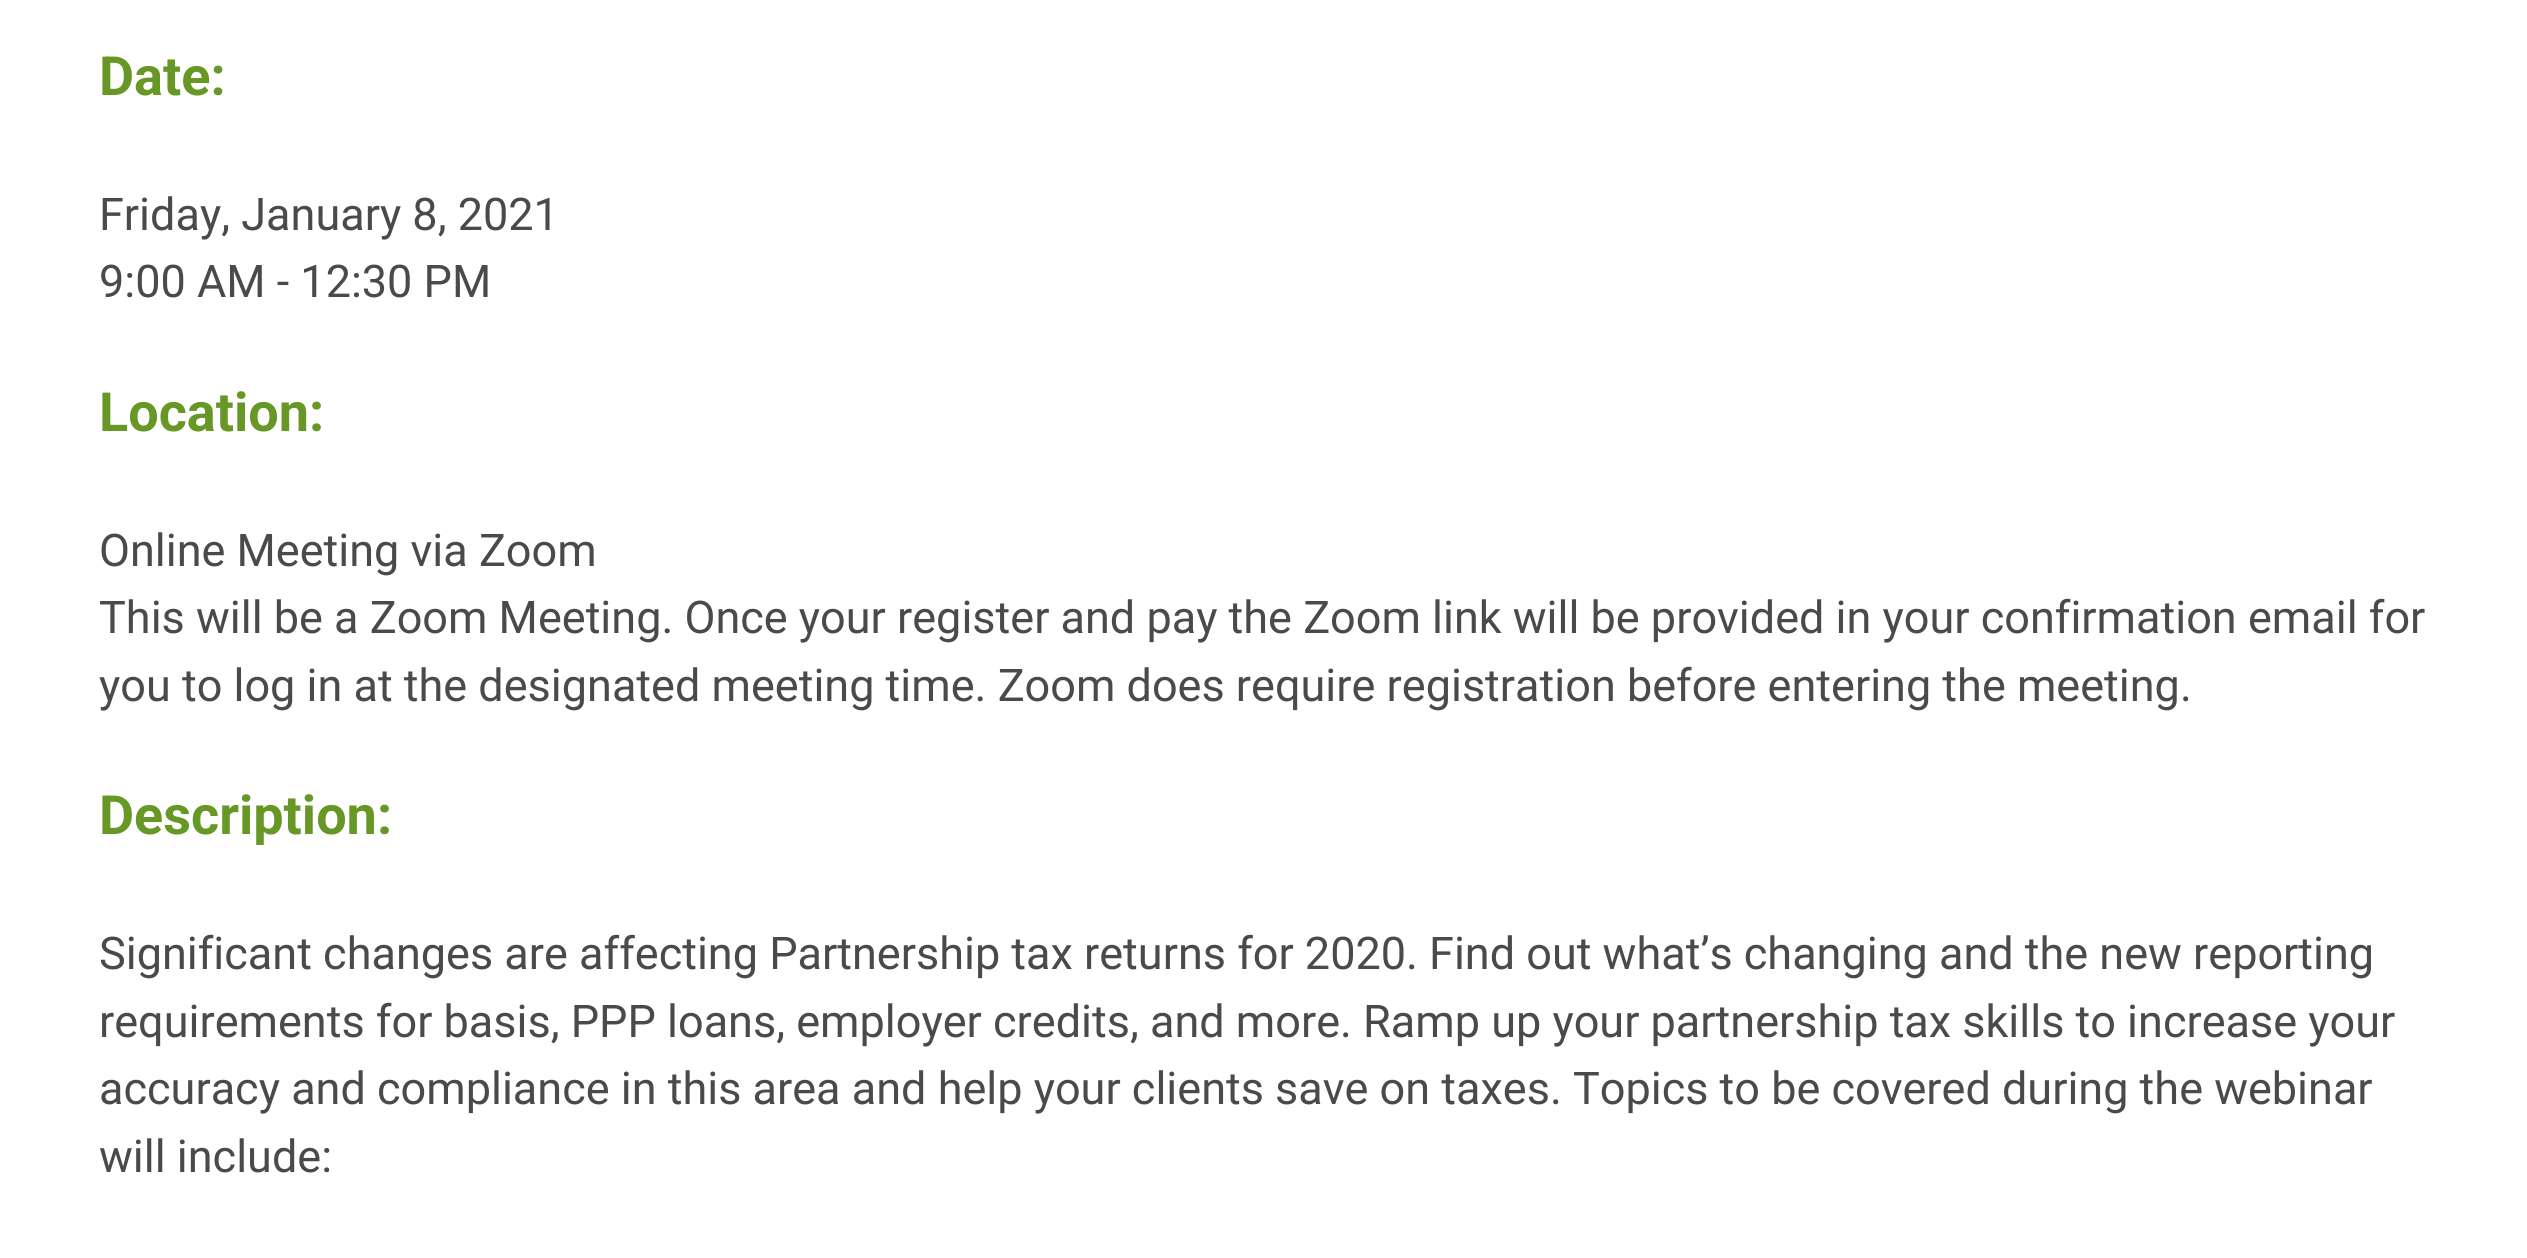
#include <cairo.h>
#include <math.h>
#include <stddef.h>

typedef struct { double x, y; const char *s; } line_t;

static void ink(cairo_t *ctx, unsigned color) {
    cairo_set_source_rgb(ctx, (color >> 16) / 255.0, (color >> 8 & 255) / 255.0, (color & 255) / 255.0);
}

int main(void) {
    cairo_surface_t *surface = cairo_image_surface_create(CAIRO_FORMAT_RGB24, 2527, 1258);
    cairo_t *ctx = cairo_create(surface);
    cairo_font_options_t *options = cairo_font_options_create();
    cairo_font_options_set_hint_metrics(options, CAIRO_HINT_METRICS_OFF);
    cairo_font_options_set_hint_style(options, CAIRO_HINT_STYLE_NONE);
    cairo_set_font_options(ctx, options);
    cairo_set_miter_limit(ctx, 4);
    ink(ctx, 0xFFFFFF);
    cairo_paint(ctx);
    cairo_select_font_face(ctx, "Roboto", CAIRO_FONT_SLANT_NORMAL, CAIRO_FONT_WEIGHT_BOLD);
    cairo_set_font_size(ctx, 54);
    ink(ctx, 0x679725);
    cairo_move_to(ctx, 99, 95);
    cairo_show_text(ctx, "Date:");
    cairo_select_font_face(ctx, "Roboto", CAIRO_FONT_SLANT_NORMAL, CAIRO_FONT_WEIGHT_NORMAL);
    cairo_set_font_size(ctx, 45);
    ink(ctx, 0x4A4A4A);
    cairo_move_to(ctx, 99, 230);
    cairo_show_text(ctx, "Friday, January 8, 2021");
    cairo_move_to(ctx, 99, 297);
    cairo_show_text(ctx, "9:00 AM - 12:30 PM");
    cairo_select_font_face(ctx, "Roboto", CAIRO_FONT_SLANT_NORMAL, CAIRO_FONT_WEIGHT_BOLD);
    cairo_set_font_size(ctx, 54);
    ink(ctx, 0x679725);
    cairo_move_to(ctx, 99, 431);
    cairo_show_text(ctx, "Location:");
    cairo_select_font_face(ctx, "Roboto", CAIRO_FONT_SLANT_NORMAL, CAIRO_FONT_WEIGHT_NORMAL);
    cairo_set_font_size(ctx, 45);
    ink(ctx, 0x4A4A4A);
    {
        static const line_t items[] = {
            {99, 566, "Online Meeting via Zoom"},
            {99, 633, "This will be a Zoom Meeting. Once your register and pay the Zoom link will be provided in your confirmation email for"},
            {99, 701, "you to log in at the designated meeting time. Zoom does require registration before entering the meeting."},
        };
        for (size_t i = 0; i < sizeof items / sizeof *items; i++) {
            cairo_move_to(ctx, items[i].x, items[i].y);
            cairo_show_text(ctx, items[i].s);
        }
    }
    cairo_select_font_face(ctx, "Roboto", CAIRO_FONT_SLANT_NORMAL, CAIRO_FONT_WEIGHT_BOLD);
    cairo_set_font_size(ctx, 54);
    ink(ctx, 0x679725);
    cairo_move_to(ctx, 99, 834);
    cairo_show_text(ctx, "Description:");
    cairo_select_font_face(ctx, "Roboto", CAIRO_FONT_SLANT_NORMAL, CAIRO_FONT_WEIGHT_NORMAL);
    cairo_set_font_size(ctx, 45);
    ink(ctx, 0x4A4A4A);
    {
        static const line_t items[] = {
            {99, 969, "Significant changes are affecting Partnership tax returns for 2020. Find out what’s changing and the new reporting"},
            {99, 1037, "requirements for basis, PPP loans, employer credits, and more. Ramp up your partnership tax skills to increase your"},
            {99, 1104, "accuracy and compliance in this area and help your clients save on taxes. Topics to be covered during the webinar"},
            {99, 1172, "will include:"},
        };
        for (size_t i = 0; i < sizeof items / sizeof *items; i++) {
            cairo_move_to(ctx, items[i].x, items[i].y);
            cairo_show_text(ctx, items[i].s);
        }
    }
    cairo_surface_write_to_png(surface, "image.png");
    cairo_font_options_destroy(options);
    cairo_destroy(ctx);
    cairo_surface_destroy(surface);
    return 0;
}
